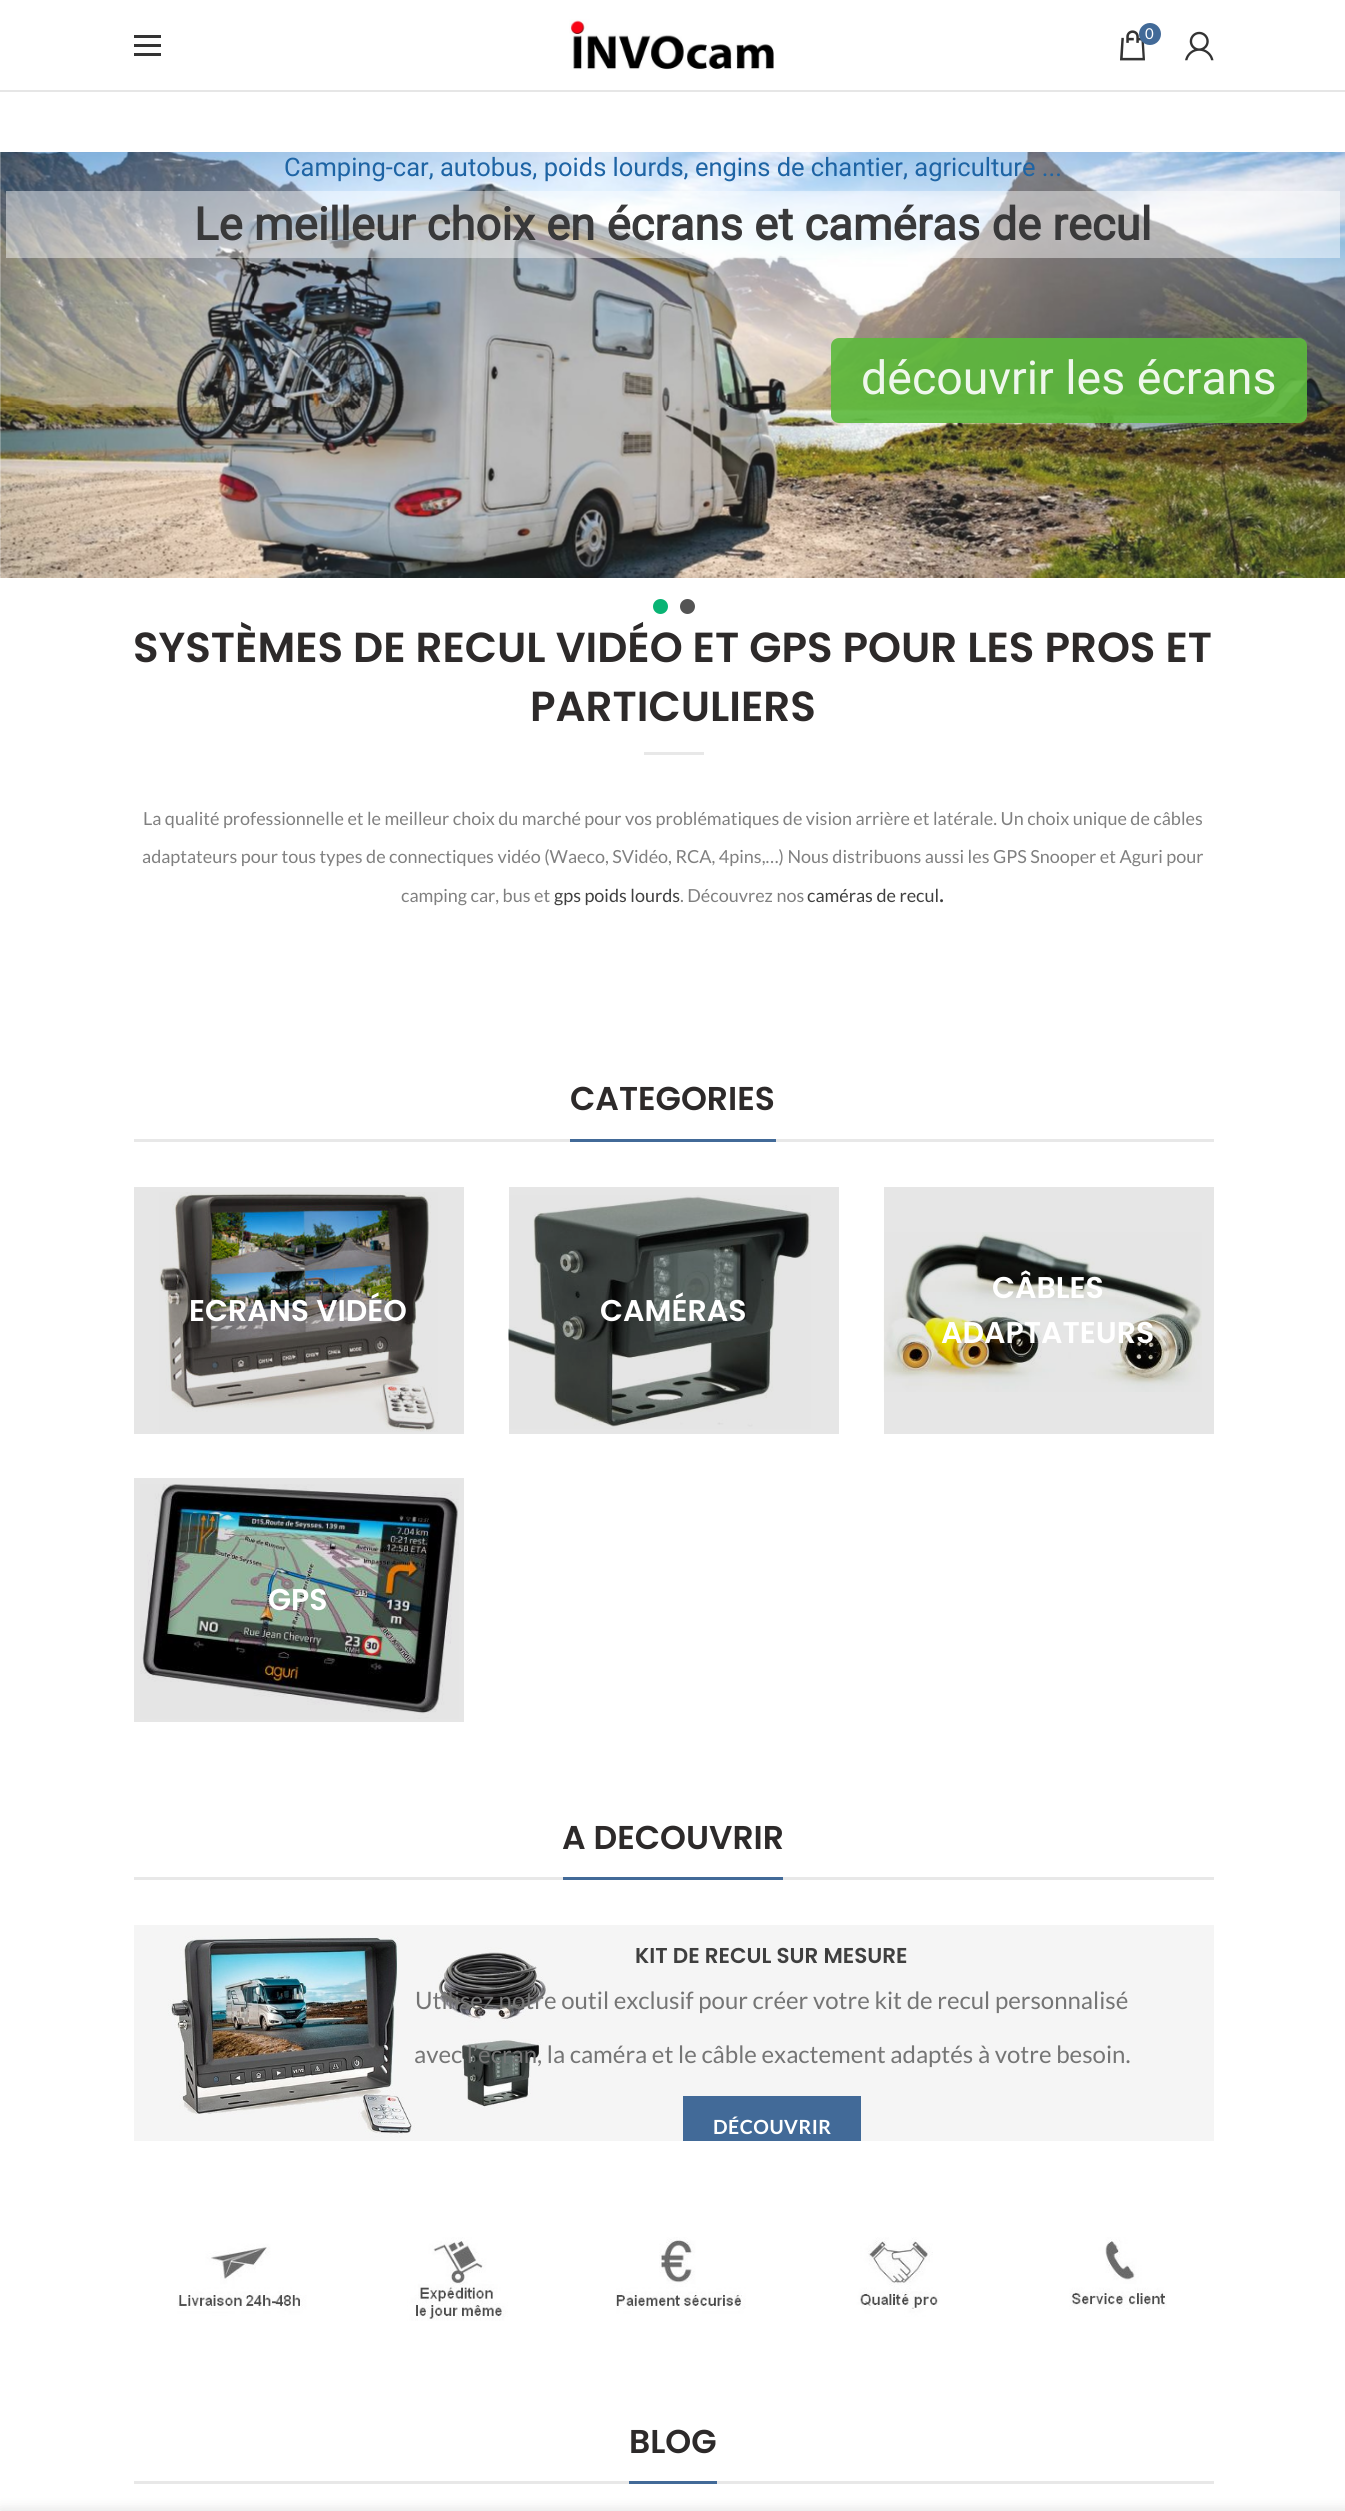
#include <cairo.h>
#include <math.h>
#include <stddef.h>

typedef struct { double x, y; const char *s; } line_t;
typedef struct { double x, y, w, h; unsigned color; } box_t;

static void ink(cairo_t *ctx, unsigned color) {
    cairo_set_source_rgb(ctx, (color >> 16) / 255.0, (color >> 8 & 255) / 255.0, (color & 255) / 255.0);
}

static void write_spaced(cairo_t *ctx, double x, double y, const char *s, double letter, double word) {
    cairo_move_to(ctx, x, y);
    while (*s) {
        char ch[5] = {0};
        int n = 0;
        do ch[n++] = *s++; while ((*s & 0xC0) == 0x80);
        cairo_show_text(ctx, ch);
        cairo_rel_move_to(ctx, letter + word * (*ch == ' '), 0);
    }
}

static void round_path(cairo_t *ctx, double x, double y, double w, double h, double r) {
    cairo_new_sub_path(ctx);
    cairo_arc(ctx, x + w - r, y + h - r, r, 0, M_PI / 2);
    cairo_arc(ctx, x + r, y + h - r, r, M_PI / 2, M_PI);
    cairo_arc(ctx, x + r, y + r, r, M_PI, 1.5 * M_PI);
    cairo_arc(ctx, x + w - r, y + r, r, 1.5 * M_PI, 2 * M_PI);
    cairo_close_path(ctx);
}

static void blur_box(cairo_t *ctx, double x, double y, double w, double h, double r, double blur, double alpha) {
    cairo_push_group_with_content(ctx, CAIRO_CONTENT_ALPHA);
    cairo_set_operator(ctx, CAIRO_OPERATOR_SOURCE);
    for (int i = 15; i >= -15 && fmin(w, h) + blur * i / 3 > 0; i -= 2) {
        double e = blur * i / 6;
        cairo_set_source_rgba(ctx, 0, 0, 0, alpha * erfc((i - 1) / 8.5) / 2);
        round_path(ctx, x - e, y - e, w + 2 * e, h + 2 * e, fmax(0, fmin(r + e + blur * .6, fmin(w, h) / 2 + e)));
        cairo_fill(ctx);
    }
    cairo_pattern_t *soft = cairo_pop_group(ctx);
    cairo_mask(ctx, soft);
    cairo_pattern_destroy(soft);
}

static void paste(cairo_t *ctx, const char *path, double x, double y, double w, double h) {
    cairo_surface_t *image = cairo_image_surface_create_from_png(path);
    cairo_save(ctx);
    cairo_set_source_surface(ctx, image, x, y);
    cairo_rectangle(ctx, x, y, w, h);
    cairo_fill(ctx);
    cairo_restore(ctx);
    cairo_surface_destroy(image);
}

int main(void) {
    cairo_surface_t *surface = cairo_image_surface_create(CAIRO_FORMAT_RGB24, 1345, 2511);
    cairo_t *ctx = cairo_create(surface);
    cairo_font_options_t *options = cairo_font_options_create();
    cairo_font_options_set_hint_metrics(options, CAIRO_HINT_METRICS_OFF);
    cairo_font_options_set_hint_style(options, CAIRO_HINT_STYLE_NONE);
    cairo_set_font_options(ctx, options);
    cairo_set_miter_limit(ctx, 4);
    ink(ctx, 0xFFFFFF);
    cairo_paint(ctx);
    {
        static const box_t items[] = {
            {134, 1478, 330, 244, 0xE6E6E6},
            {884, 1187, 330, 247, 0xE6E6E6},
            {509, 1187, 330, 247, 0xE6E6E6},
            {134, 1187, 330, 247, 0xE6E6E6},
            {0, 90, 1345, 2, 0xE6E6E6},
            {134, 44, 27, 3, 0x333333},
            {134, 35, 27, 3, 0x333333},
            {134, 53, 27, 3, 0x333333},
        };
        for (size_t i = 0; i < sizeof items / sizeof *items; i++) {
            ink(ctx, items[i].color);
            cairo_rectangle(ctx, items[i].x, items[i].y, items[i].w, items[i].h);
            cairo_fill(ctx);
        }
    }
    paste(ctx, "media/1.png", 569, 19, 205, 51);
    paste(ctx, "media/2.png", 1120, 30, 25, 31);
    ink(ctx, 0x426A98);
    cairo_arc(ctx, 1150, 34, 11, 0, 2 * M_PI);
    cairo_fill(ctx);
    cairo_select_font_face(ctx, "Lato", CAIRO_FONT_SLANT_NORMAL, CAIRO_FONT_WEIGHT_NORMAL);
    cairo_set_font_size(ctx, 15);
    ink(ctx, 0xFFFFFF);
    cairo_move_to(ctx, 1145, 39);
    cairo_show_text(ctx, "0");
    paste(ctx, "media/3.png", 1185, 31, 29, 30);
    paste(ctx, "media/4.png", 0, 152, 1345, 426);
    cairo_select_font_face(ctx, "Roboto", CAIRO_FONT_SLANT_NORMAL, CAIRO_FONT_WEIGHT_NORMAL);
    cairo_set_font_size(ctx, 25.5);
    ink(ctx, 0x1E64A4);
    cairo_move_to(ctx, 284, 176);
    cairo_show_text(ctx, "Camping-car, autobus, poids lourds, engins de chantier, agriculture ...");
    cairo_set_source_rgba(ctx, 1, 1, 1, 0.45);
    cairo_rectangle(ctx, 6, 191, 1334, 67);
    cairo_fill(ctx);
    cairo_select_font_face(ctx, "Roboto", CAIRO_FONT_SLANT_NORMAL, CAIRO_FONT_WEIGHT_BOLD);
    cairo_set_font_size(ctx, 45.4);
    ink(ctx, 0x39393A);
    cairo_move_to(ctx, 194, 240);
    cairo_show_text(ctx, "Le meilleur choix en écrans et caméras de recul");
    cairo_set_source_rgba(ctx, 0.361, 0.729, 0.235, 0.9);
    round_path(ctx, 831, 338, 476, 85, 8);
    cairo_fill(ctx);
    cairo_select_font_face(ctx, "Roboto", CAIRO_FONT_SLANT_NORMAL, CAIRO_FONT_WEIGHT_NORMAL);
    cairo_set_font_size(ctx, 46.5);
    ink(ctx, 0xEFF7EC);
    cairo_move_to(ctx, 861, 394);
    cairo_show_text(ctx, "découvrir les écrans");
    ink(ctx, 0x09B474);
    cairo_new_path(ctx);
    cairo_arc(ctx, 660.5, 606.5, 7.5, 0, 2 * M_PI);
    cairo_fill(ctx);
    ink(ctx, 0x545454);
    cairo_arc(ctx, 687.5, 606.5, 7.5, 0, 2 * M_PI);
    cairo_fill(ctx);
    cairo_select_font_face(ctx, "Poppins SemiBold", CAIRO_FONT_SLANT_NORMAL, CAIRO_FONT_WEIGHT_NORMAL);
    cairo_set_font_size(ctx, 42);
    ink(ctx, 0x2D2A2A);
    cairo_move_to(ctx, 133, 662);
    cairo_show_text(ctx, "SYSTÈMES DE RECUL VIDÉO ET GPS POUR LES PROS ET");
    cairo_move_to(ctx, 530, 721);
    cairo_show_text(ctx, "PARTICULIERS");
    ink(ctx, 0xE8E8E8);
    cairo_rectangle(ctx, 644, 752, 60, 3);
    cairo_fill(ctx);
    cairo_select_font_face(ctx, "Lato", CAIRO_FONT_SLANT_NORMAL, CAIRO_FONT_WEIGHT_NORMAL);
    cairo_set_font_size(ctx, 18);
    ink(ctx, 0x808080);
    {
        static const line_t items[] = {
            {143, 825, "La qualité professionnelle et le meilleur choix du marché pour vos problématiques de vision arrière et latérale. Un choix unique de câbles"},
            {142, 863, "adaptateurs pour tous types de connectiques vidéo (Waeco, SVidéo, RCA, 4pins,…) Nous distribuons aussi les GPS Snooper et Aguri pour"},
            {401, 902, "camping car, bus et"},
        };
        for (size_t i = 0; i < sizeof items / sizeof *items; i++) {
            cairo_move_to(ctx, items[i].x, items[i].y);
            cairo_show_text(ctx, items[i].s);
        }
    }
    ink(ctx, 0x3F3F3F);
    cairo_move_to(ctx, 554, 902);
    cairo_show_text(ctx, "gps poids lourds");
    ink(ctx, 0x808080);
    cairo_move_to(ctx, 680, 902);
    cairo_show_text(ctx, ". Découvrez nos");
    ink(ctx, 0x3F3F3F);
    cairo_move_to(ctx, 807, 902);
    cairo_show_text(ctx, "caméras de recul");
    cairo_set_font_size(ctx, 24);
    cairo_move_to(ctx, 939, 902);
    cairo_show_text(ctx, ".");
    ink(ctx, 0xE8E8E8);
    cairo_rectangle(ctx, 134, 1139, 1080, 3);
    cairo_fill(ctx);
    ink(ctx, 0x426A98);
    cairo_rectangle(ctx, 570, 1139, 206, 3);
    cairo_fill(ctx);
    cairo_select_font_face(ctx, "Poppins SemiBold", CAIRO_FONT_SLANT_NORMAL, CAIRO_FONT_WEIGHT_NORMAL);
    cairo_set_font_size(ctx, 33);
    ink(ctx, 0x2D2A2A);
    cairo_move_to(ctx, 570, 1110);
    cairo_show_text(ctx, "CATEGORIES");
    paste(ctx, "media/5.png", 159, 1192, 279, 240);
    cairo_set_font_size(ctx, 30);
    ink(ctx, 0xFFFFFF);
    cairo_move_to(ctx, 189, 1321);
    cairo_show_text(ctx, "ECRANS VIDÉO");
    paste(ctx, "media/6.png", 508, 1195, 303, 234);
    cairo_move_to(ctx, 600, 1321);
    cairo_show_text(ctx, "CAMÉRAS");
    paste(ctx, "media/7.png", 883, 1232, 319, 160);
    cairo_move_to(ctx, 992, 1298);
    cairo_show_text(ctx, "CÂBLES");
    cairo_move_to(ctx, 941, 1343);
    cairo_show_text(ctx, "ADAPTATEURS");
    paste(ctx, "media/8.png", 140, 1484, 319, 235);
    cairo_move_to(ctx, 268, 1610);
    cairo_show_text(ctx, "GPS");
    ink(ctx, 0xE8E8E8);
    cairo_rectangle(ctx, 134, 1877, 1080, 3);
    cairo_fill(ctx);
    ink(ctx, 0x426A98);
    cairo_rectangle(ctx, 563, 1877, 220, 3);
    cairo_fill(ctx);
    cairo_set_font_size(ctx, 33);
    ink(ctx, 0x2D2A2A);
    cairo_move_to(ctx, 562, 1849);
    cairo_show_text(ctx, "A DECOUVRIR");
    paste(ctx, "media/9.png", 134, 1925, 1080, 216);
    cairo_set_font_size(ctx, 21.5);
    ink(ctx, 0x3F3F3F);
    cairo_move_to(ctx, 635, 1963);
    cairo_show_text(ctx, "KIT DE RECUL SUR MESURE");
    cairo_select_font_face(ctx, "Lato", CAIRO_FONT_SLANT_NORMAL, CAIRO_FONT_WEIGHT_NORMAL);
    cairo_set_font_size(ctx, 24);
    ink(ctx, 0x757575);
    cairo_move_to(ctx, 415, 2009);
    cairo_show_text(ctx, "Utilisez notre outil exclusif pour créer votre kit de recul personnalisé");
    cairo_move_to(ctx, 414, 2063);
    cairo_show_text(ctx, "avec l’écran, la caméra et le câble exactement adaptés à votre besoin.");
    ink(ctx, 0x426A98);
    cairo_rectangle(ctx, 683, 2096, 178, 45);
    cairo_fill(ctx);
    cairo_select_font_face(ctx, "Lato", CAIRO_FONT_SLANT_NORMAL, CAIRO_FONT_WEIGHT_BOLD);
    cairo_set_font_size(ctx, 19.5);
    ink(ctx, 0xFFFFFF);
    write_spaced(ctx, 713, 2134, "DÉCOUVRIR", 0.5, 0);
    paste(ctx, "media/10.png", 177, 2237, 990, 84);
    ink(ctx, 0xE8E8E8);
    cairo_rectangle(ctx, 134, 2481, 1080, 3);
    cairo_fill(ctx);
    ink(ctx, 0x426A98);
    cairo_rectangle(ctx, 629, 2481, 88, 3);
    cairo_fill(ctx);
    cairo_select_font_face(ctx, "Poppins SemiBold", CAIRO_FONT_SLANT_NORMAL, CAIRO_FONT_WEIGHT_NORMAL);
    cairo_set_font_size(ctx, 33);
    ink(ctx, 0x2D2A2A);
    cairo_move_to(ctx, 629, 2453);
    cairo_show_text(ctx, "BLOG");
    ink(ctx, 0x000000);
    blur_box(ctx, 0, 2511, 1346, 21, 0, 7, 0.14);
    cairo_surface_write_to_png(surface, "image.png");
    cairo_font_options_destroy(options);
    cairo_destroy(ctx);
    cairo_surface_destroy(surface);
    return 0;
}
